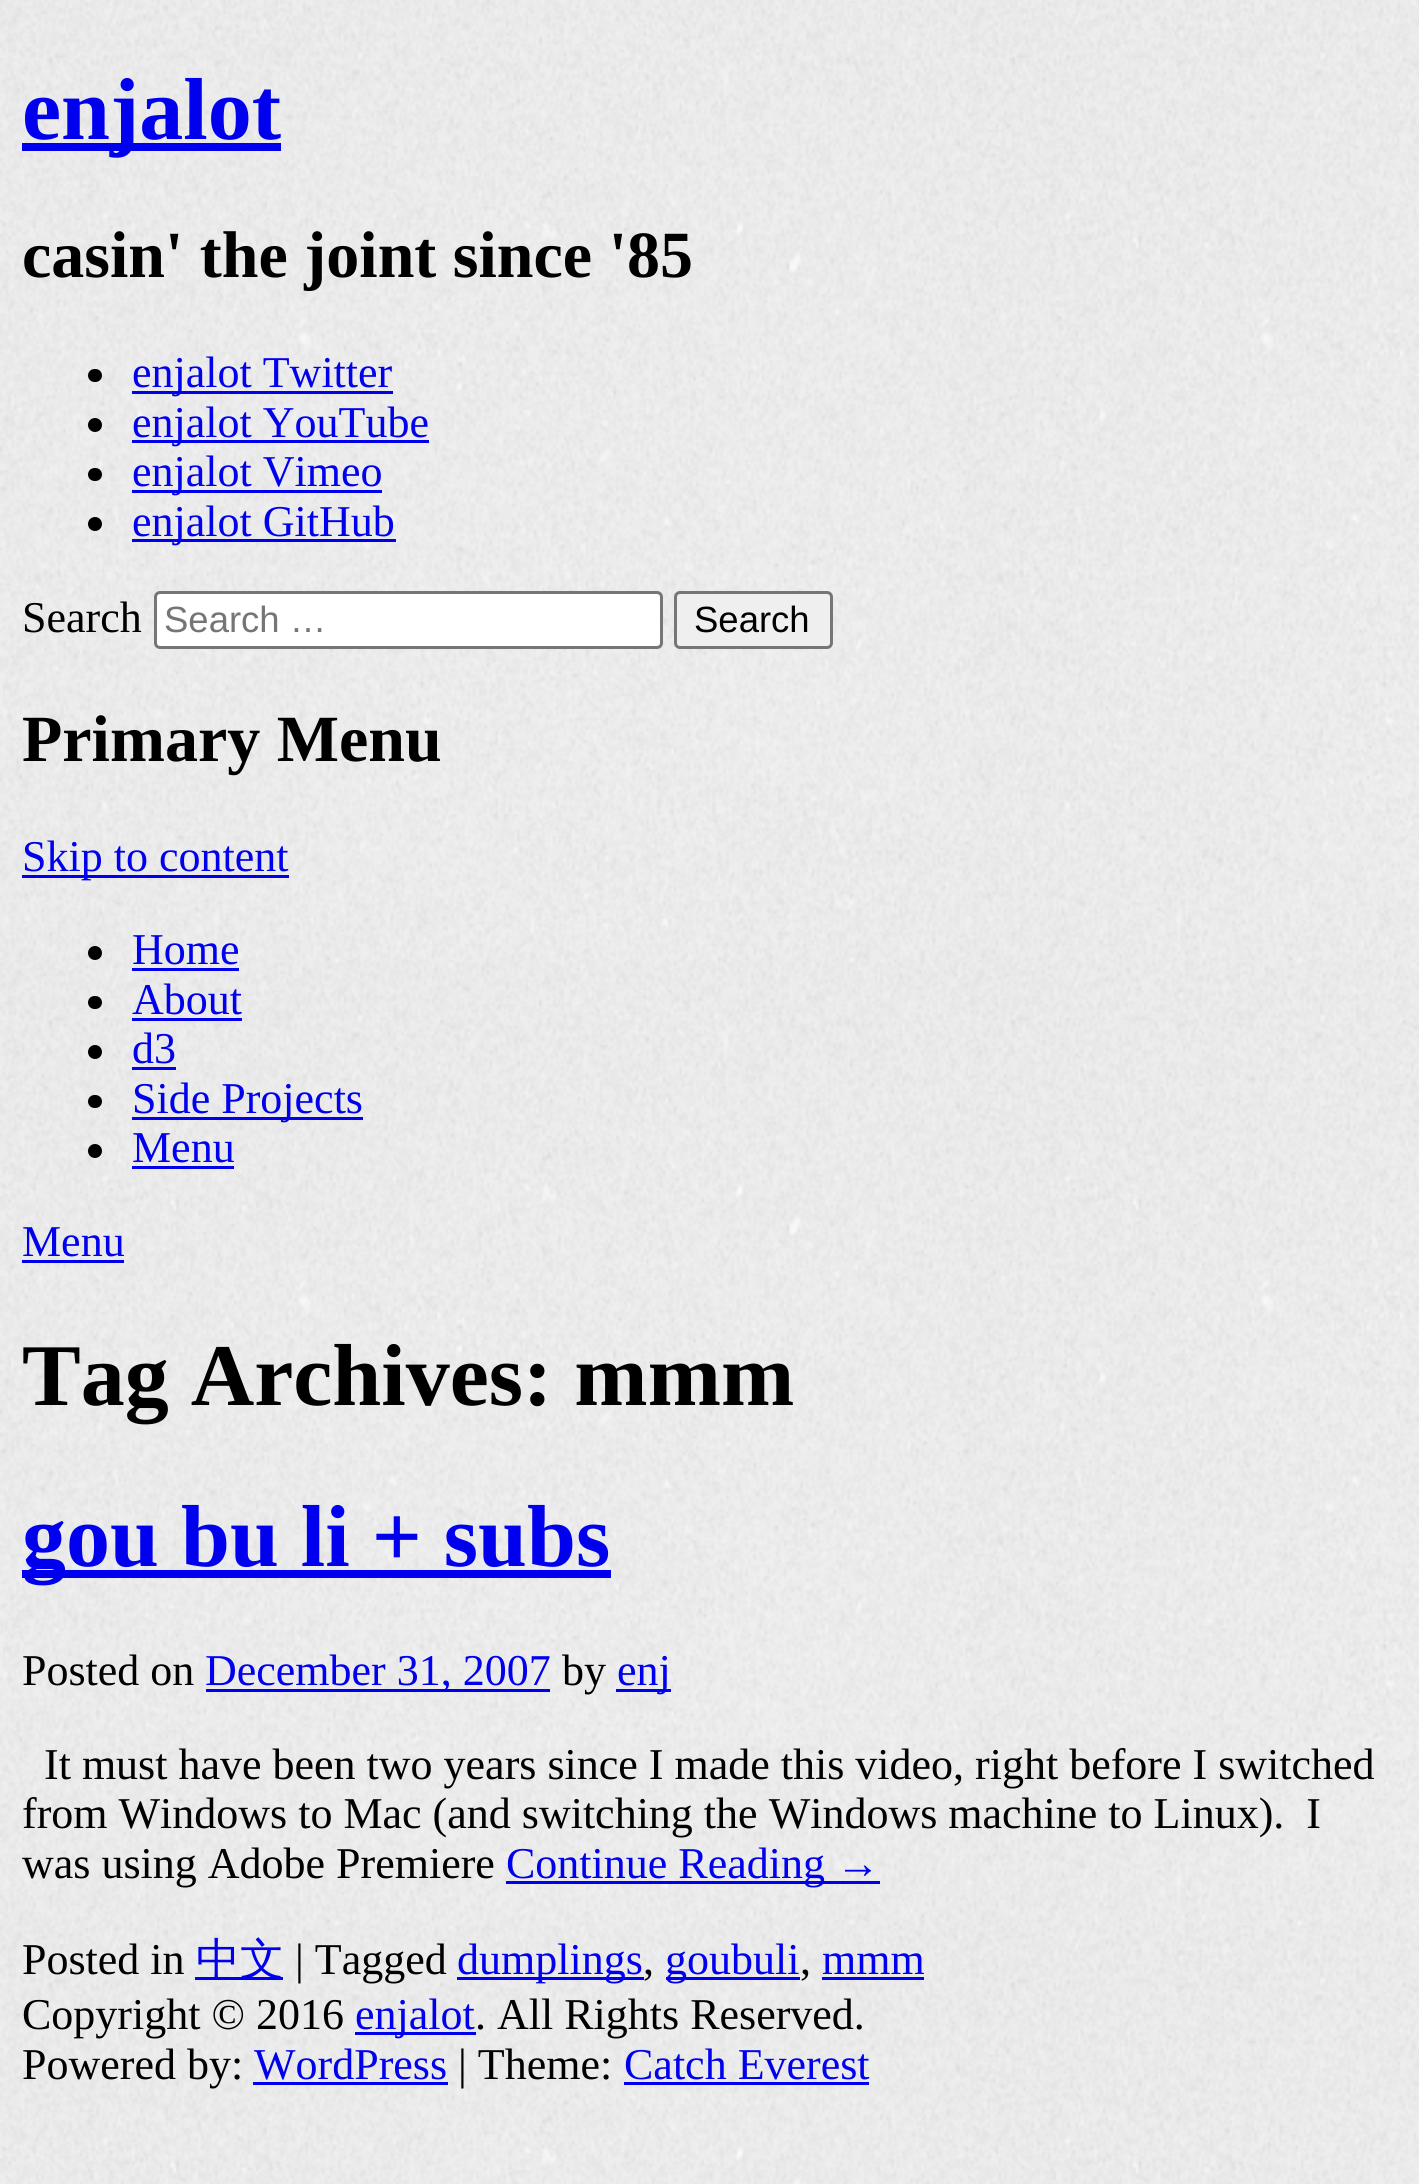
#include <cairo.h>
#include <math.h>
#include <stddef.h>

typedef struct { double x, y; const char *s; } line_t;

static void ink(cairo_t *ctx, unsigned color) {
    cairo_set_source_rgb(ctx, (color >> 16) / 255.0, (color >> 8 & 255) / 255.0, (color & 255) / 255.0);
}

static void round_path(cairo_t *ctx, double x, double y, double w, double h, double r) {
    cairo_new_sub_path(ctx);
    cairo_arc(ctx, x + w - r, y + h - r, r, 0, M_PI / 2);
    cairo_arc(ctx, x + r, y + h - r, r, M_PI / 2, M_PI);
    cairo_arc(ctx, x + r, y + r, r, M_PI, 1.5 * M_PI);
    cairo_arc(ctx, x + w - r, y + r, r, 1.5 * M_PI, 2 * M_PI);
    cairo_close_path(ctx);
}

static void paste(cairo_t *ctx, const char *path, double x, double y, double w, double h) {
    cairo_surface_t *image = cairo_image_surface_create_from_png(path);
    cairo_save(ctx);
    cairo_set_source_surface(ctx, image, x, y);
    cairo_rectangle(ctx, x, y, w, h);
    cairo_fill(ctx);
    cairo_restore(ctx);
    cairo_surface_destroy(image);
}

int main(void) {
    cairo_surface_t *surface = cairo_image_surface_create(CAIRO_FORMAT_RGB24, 1419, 2184);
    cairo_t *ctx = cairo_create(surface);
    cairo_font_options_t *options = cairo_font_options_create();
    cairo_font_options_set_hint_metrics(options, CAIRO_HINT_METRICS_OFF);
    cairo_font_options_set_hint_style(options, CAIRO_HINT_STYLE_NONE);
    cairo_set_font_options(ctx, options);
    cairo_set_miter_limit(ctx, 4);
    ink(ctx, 0xFFFFFF);
    cairo_paint(ctx);
    paste(ctx, "media/1.png", 0, 0, 1419, 2184);
    ink(ctx, 0x0000EE);
    cairo_rectangle(ctx, 22, 143, 259, 8);
    cairo_fill(ctx);
    cairo_select_font_face(ctx, "Liberation Serif", CAIRO_FONT_SLANT_NORMAL, CAIRO_FONT_WEIGHT_BOLD);
    cairo_set_font_size(ctx, 88);
    cairo_move_to(ctx, 22, 139);
    cairo_show_text(ctx, "enjalot");
    cairo_set_font_size(ctx, 66);
    ink(ctx, 0x000000);
    cairo_move_to(ctx, 22, 277);
    cairo_show_text(ctx, "casin' the joint since '85");
    round_path(ctx, 88, 369, 14, 13, 6.5);
    cairo_fill(ctx);
    ink(ctx, 0x0000EE);
    cairo_rectangle(ctx, 132, 391, 261, 3);
    cairo_fill(ctx);
    cairo_select_font_face(ctx, "Liberation Serif", CAIRO_FONT_SLANT_NORMAL, CAIRO_FONT_WEIGHT_NORMAL);
    cairo_set_font_size(ctx, 44);
    cairo_move_to(ctx, 132, 387);
    cairo_show_text(ctx, "enjalot Twitter");
    ink(ctx, 0x000000);
    cairo_new_path(ctx);
    cairo_arc(ctx, 95, 425, 7, 0, 2 * M_PI);
    cairo_fill(ctx);
    ink(ctx, 0x0000EE);
    cairo_rectangle(ctx, 132, 440, 297, 3);
    cairo_fill(ctx);
    cairo_move_to(ctx, 132, 437);
    cairo_show_text(ctx, "enjalot YouTube");
    ink(ctx, 0x000000);
    round_path(ctx, 88, 468, 14, 13, 6.5);
    cairo_fill(ctx);
    ink(ctx, 0x0000EE);
    cairo_rectangle(ctx, 132, 490, 250, 3);
    cairo_fill(ctx);
    cairo_move_to(ctx, 132, 486);
    cairo_show_text(ctx, "enjalot Vimeo");
    ink(ctx, 0x000000);
    cairo_new_path(ctx);
    cairo_arc(ctx, 95, 524, 7, 0, 2 * M_PI);
    cairo_fill(ctx);
    ink(ctx, 0x0000EE);
    cairo_rectangle(ctx, 132, 539, 264, 3);
    cairo_fill(ctx);
    cairo_move_to(ctx, 132, 536);
    cairo_show_text(ctx, "enjalot GitHub");
    ink(ctx, 0x000000);
    cairo_move_to(ctx, 22, 632);
    cairo_show_text(ctx, "Search");
    ink(ctx, 0xFFFFFF);
    round_path(ctx, 155.5, 592.5, 506, 55, 4.5);
    cairo_fill_preserve(ctx);
    ink(ctx, 0x767676);
    cairo_set_line_width(ctx, 3);
    cairo_stroke(ctx);
    cairo_select_font_face(ctx, "Liberation Sans", CAIRO_FONT_SLANT_NORMAL, CAIRO_FONT_WEIGHT_NORMAL);
    cairo_set_font_size(ctx, 36.5);
    ink(ctx, 0x757575);
    cairo_move_to(ctx, 164, 632);
    cairo_show_text(ctx, "Search …");
    ink(ctx, 0xEFEFEF);
    round_path(ctx, 675.5, 592.5, 156, 55, 4.5);
    cairo_fill_preserve(ctx);
    ink(ctx, 0x767676);
    cairo_stroke(ctx);
    ink(ctx, 0x000000);
    cairo_move_to(ctx, 694, 632);
    cairo_show_text(ctx, "Search");
    cairo_select_font_face(ctx, "Liberation Serif", CAIRO_FONT_SLANT_NORMAL, CAIRO_FONT_WEIGHT_BOLD);
    cairo_set_font_size(ctx, 66);
    cairo_move_to(ctx, 22, 761);
    cairo_show_text(ctx, "Primary Menu");
    ink(ctx, 0x0000EE);
    cairo_rectangle(ctx, 22, 875, 267, 3);
    cairo_fill(ctx);
    cairo_select_font_face(ctx, "Liberation Serif", CAIRO_FONT_SLANT_NORMAL, CAIRO_FONT_WEIGHT_NORMAL);
    cairo_set_font_size(ctx, 44);
    cairo_move_to(ctx, 22, 871);
    cairo_show_text(ctx, "Skip to content");
    ink(ctx, 0x000000);
    cairo_new_path(ctx);
    cairo_arc(ctx, 95, 953, 7, 0, 2 * M_PI);
    cairo_fill(ctx);
    ink(ctx, 0x0000EE);
    cairo_move_to(ctx, 132, 964);
    cairo_show_text(ctx, "Home");
    cairo_rectangle(ctx, 132, 968, 107, 3);
    cairo_fill(ctx);
    ink(ctx, 0x000000);
    round_path(ctx, 88, 996, 14, 13, 6.5);
    cairo_fill(ctx);
    ink(ctx, 0x0000EE);
    cairo_move_to(ctx, 132, 1014);
    cairo_show_text(ctx, "About");
    cairo_rectangle(ctx, 132, 1018, 110, 3);
    cairo_fill(ctx);
    ink(ctx, 0x000000);
    cairo_arc(ctx, 95, 1052, 7, 0, 2 * M_PI);
    cairo_fill(ctx);
    ink(ctx, 0x0000EE);
    cairo_move_to(ctx, 132, 1063);
    cairo_show_text(ctx, "d3");
    cairo_rectangle(ctx, 132, 1067, 44, 3);
    cairo_fill(ctx);
    ink(ctx, 0x000000);
    round_path(ctx, 88, 1095, 14, 13, 6.5);
    cairo_fill(ctx);
    ink(ctx, 0x0000EE);
    cairo_rectangle(ctx, 132, 1117, 231, 3);
    cairo_fill(ctx);
    cairo_move_to(ctx, 132, 1113);
    cairo_show_text(ctx, "Side Projects");
    ink(ctx, 0x000000);
    cairo_new_path(ctx);
    cairo_arc(ctx, 95, 1151, 7, 0, 2 * M_PI);
    cairo_fill(ctx);
    ink(ctx, 0x0000EE);
    cairo_move_to(ctx, 132, 1162);
    cairo_show_text(ctx, "Menu");
    cairo_rectangle(ctx, 132, 1166, 102, 3);
    cairo_fill(ctx);
    cairo_move_to(ctx, 22, 1256);
    cairo_show_text(ctx, "Menu");
    cairo_rectangle(ctx, 22, 1260, 102, 3);
    cairo_fill(ctx);
    cairo_select_font_face(ctx, "Liberation Serif", CAIRO_FONT_SLANT_NORMAL, CAIRO_FONT_WEIGHT_BOLD);
    cairo_set_font_size(ctx, 88);
    ink(ctx, 0x000000);
    cairo_move_to(ctx, 22, 1405);
    cairo_show_text(ctx, "Tag Archives: mmm");
    ink(ctx, 0x0000EE);
    cairo_rectangle(ctx, 22, 1570, 589, 8);
    cairo_fill(ctx);
    cairo_move_to(ctx, 22, 1566);
    cairo_show_text(ctx, "gou bu li + subs");
    cairo_select_font_face(ctx, "Liberation Serif", CAIRO_FONT_SLANT_NORMAL, CAIRO_FONT_WEIGHT_NORMAL);
    cairo_set_font_size(ctx, 44);
    ink(ctx, 0x000000);
    cairo_move_to(ctx, 22, 1685);
    cairo_show_text(ctx, "Posted on");
    ink(ctx, 0x0000EE);
    cairo_rectangle(ctx, 206, 1689, 344, 3);
    cairo_fill(ctx);
    cairo_move_to(ctx, 205, 1685);
    cairo_show_text(ctx, "December 31, 2007");
    ink(ctx, 0x000000);
    cairo_move_to(ctx, 562, 1685);
    cairo_show_text(ctx, "by");
    ink(ctx, 0x0000EE);
    cairo_rectangle(ctx, 616, 1689, 55, 3);
    cairo_fill(ctx);
    cairo_move_to(ctx, 617, 1685);
    cairo_show_text(ctx, "enj");
    ink(ctx, 0x000000);
    {
        static const line_t items[] = {
            {44, 1779, "It must have been two years since I made this video, right before I switched"},
            {22, 1828, "from Windows to Mac (and switching the Windows machine to Linux).  I"},
            {22, 1878, "was using Adobe Premiere"},
        };
        for (size_t i = 0; i < sizeof items / sizeof *items; i++) {
            cairo_move_to(ctx, items[i].x, items[i].y);
            cairo_show_text(ctx, items[i].s);
        }
    }
    ink(ctx, 0x0000EE);
    cairo_rectangle(ctx, 506, 1881, 374, 3);
    cairo_fill(ctx);
    cairo_move_to(ctx, 506, 1878);
    cairo_show_text(ctx, "Continue Reading →");
    ink(ctx, 0x000000);
    cairo_move_to(ctx, 22, 1974);
    cairo_show_text(ctx, "Posted in");
    ink(ctx, 0x0000EE);
    cairo_rectangle(ctx, 195, 1977, 88, 3);
    cairo_fill(ctx);
    cairo_select_font_face(ctx, "WenQuanYi Zen Hei Medium", CAIRO_FONT_SLANT_NORMAL, CAIRO_FONT_WEIGHT_NORMAL);
    cairo_move_to(ctx, 196, 1974);
    cairo_show_text(ctx, "中文");
    cairo_select_font_face(ctx, "Liberation Serif", CAIRO_FONT_SLANT_NORMAL, CAIRO_FONT_WEIGHT_NORMAL);
    ink(ctx, 0x000000);
    cairo_move_to(ctx, 295, 1974);
    cairo_show_text(ctx, "| Tagged");
    ink(ctx, 0x0000EE);
    cairo_rectangle(ctx, 457, 1977, 187, 3);
    cairo_fill(ctx);
    cairo_move_to(ctx, 457, 1974);
    cairo_show_text(ctx, "dumplings");
    ink(ctx, 0x000000);
    cairo_move_to(ctx, 643, 1974);
    cairo_show_text(ctx, ",");
    ink(ctx, 0x0000EE);
    cairo_rectangle(ctx, 666, 1977, 134, 3);
    cairo_fill(ctx);
    cairo_move_to(ctx, 665, 1974);
    cairo_show_text(ctx, "goubuli");
    ink(ctx, 0x000000);
    cairo_move_to(ctx, 800, 1974);
    cairo_show_text(ctx, ",");
    ink(ctx, 0x0000EE);
    cairo_rectangle(ctx, 822, 1977, 102, 3);
    cairo_fill(ctx);
    cairo_move_to(ctx, 822, 1974);
    cairo_show_text(ctx, "mmm");
    ink(ctx, 0x000000);
    cairo_move_to(ctx, 22, 2029);
    cairo_show_text(ctx, "Copyright © 2016");
    ink(ctx, 0x0000EE);
    cairo_rectangle(ctx, 355, 2032, 121, 3);
    cairo_fill(ctx);
    cairo_move_to(ctx, 355, 2029);
    cairo_show_text(ctx, "enjalot");
    ink(ctx, 0x000000);
    cairo_move_to(ctx, 475, 2029);
    cairo_show_text(ctx, ". All Rights Reserved.");
    cairo_move_to(ctx, 22, 2079);
    cairo_show_text(ctx, "Powered by:");
    ink(ctx, 0x0000EE);
    cairo_move_to(ctx, 254, 2079);
    cairo_show_text(ctx, "WordPress");
    cairo_rectangle(ctx, 253, 2082, 195, 3);
    cairo_fill(ctx);
    ink(ctx, 0x000000);
    cairo_move_to(ctx, 458, 2079);
    cairo_show_text(ctx, "| Theme:");
    ink(ctx, 0x0000EE);
    cairo_move_to(ctx, 624, 2079);
    cairo_show_text(ctx, "Catch Everest");
    cairo_rectangle(ctx, 624, 2082, 245, 3);
    cairo_fill(ctx);
    cairo_surface_write_to_png(surface, "image.png");
    cairo_font_options_destroy(options);
    cairo_destroy(ctx);
    cairo_surface_destroy(surface);
    return 0;
}
